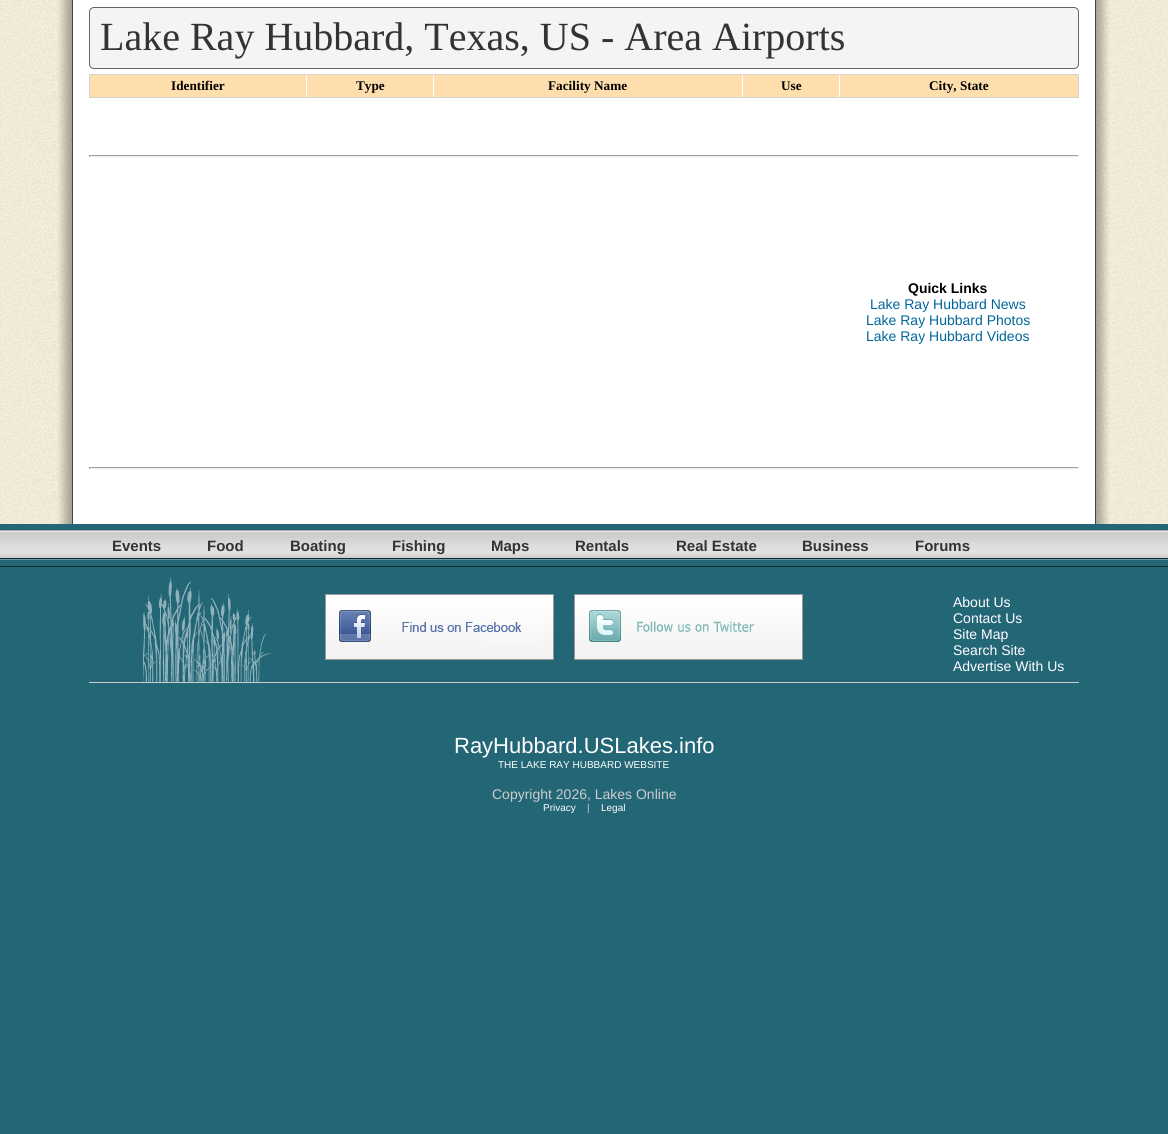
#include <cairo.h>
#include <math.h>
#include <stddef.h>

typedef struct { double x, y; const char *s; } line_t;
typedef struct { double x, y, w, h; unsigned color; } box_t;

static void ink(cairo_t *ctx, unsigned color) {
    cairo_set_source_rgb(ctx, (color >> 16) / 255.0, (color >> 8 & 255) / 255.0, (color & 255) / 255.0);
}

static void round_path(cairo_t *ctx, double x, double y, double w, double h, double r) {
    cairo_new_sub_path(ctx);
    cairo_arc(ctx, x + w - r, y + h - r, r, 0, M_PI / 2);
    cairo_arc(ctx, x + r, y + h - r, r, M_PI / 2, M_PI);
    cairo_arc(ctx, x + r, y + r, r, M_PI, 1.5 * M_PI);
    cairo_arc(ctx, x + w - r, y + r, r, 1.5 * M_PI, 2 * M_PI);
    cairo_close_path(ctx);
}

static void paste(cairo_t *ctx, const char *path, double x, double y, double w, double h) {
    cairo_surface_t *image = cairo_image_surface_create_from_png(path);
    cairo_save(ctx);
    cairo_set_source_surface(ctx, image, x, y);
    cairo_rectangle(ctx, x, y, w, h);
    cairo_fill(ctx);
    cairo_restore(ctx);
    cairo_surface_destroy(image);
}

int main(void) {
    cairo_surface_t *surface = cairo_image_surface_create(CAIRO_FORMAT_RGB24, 1168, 1134);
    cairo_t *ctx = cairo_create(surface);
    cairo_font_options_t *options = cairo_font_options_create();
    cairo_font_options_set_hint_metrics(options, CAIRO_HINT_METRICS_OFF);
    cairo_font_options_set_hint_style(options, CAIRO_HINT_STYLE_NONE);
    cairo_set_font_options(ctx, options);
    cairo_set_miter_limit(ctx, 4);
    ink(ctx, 0xFFFFFF);
    cairo_paint(ctx);
    paste(ctx, "media/1.png", 0, 0, 1168, 524);
    ink(ctx, 0xF4F4F4);
    round_path(ctx, 89.5, 7.5, 989, 61, 4.5);
    cairo_fill_preserve(ctx);
    ink(ctx, 0x666666);
    cairo_set_line_width(ctx, 1);
    cairo_stroke(ctx);
    cairo_select_font_face(ctx, "Liberation Serif", CAIRO_FONT_SLANT_NORMAL, CAIRO_FONT_WEIGHT_NORMAL);
    cairo_set_font_size(ctx, 40);
    ink(ctx, 0x333333);
    cairo_move_to(ctx, 100, 50);
    cairo_show_text(ctx, "Lake Ray Hubbard, Texas, US - Area Airports");
    {
        static const box_t items[] = {
            {89, 74, 990, 24, 0xD3D3D3},
            {306, 75, 534, 22, 0xFFFFFF},
            {90, 75, 216, 22, 0xFFDEAD},
        };
        for (size_t i = 0; i < sizeof items / sizeof *items; i++) {
            ink(ctx, items[i].color);
            cairo_rectangle(ctx, items[i].x, items[i].y, items[i].w, items[i].h);
            cairo_fill(ctx);
        }
    }
    cairo_select_font_face(ctx, "Liberation Serif", CAIRO_FONT_SLANT_NORMAL, CAIRO_FONT_WEIGHT_BOLD);
    cairo_set_font_size(ctx, 13.25);
    ink(ctx, 0x000000);
    cairo_move_to(ctx, 171, 90);
    cairo_show_text(ctx, "Identifier");
    ink(ctx, 0xFFDEAD);
    cairo_rectangle(ctx, 307, 75, 126, 22);
    cairo_fill(ctx);
    ink(ctx, 0x000000);
    cairo_move_to(ctx, 356, 90);
    cairo_show_text(ctx, "Type");
    ink(ctx, 0xFFDEAD);
    cairo_rectangle(ctx, 434, 75, 308, 22);
    cairo_fill(ctx);
    ink(ctx, 0x000000);
    cairo_move_to(ctx, 548, 90);
    cairo_show_text(ctx, "Facility Name");
    ink(ctx, 0xFFDEAD);
    cairo_rectangle(ctx, 743, 75, 96, 22);
    cairo_fill(ctx);
    ink(ctx, 0x000000);
    cairo_move_to(ctx, 781, 90);
    cairo_show_text(ctx, "Use");
    ink(ctx, 0xFFDEAD);
    cairo_rectangle(ctx, 840, 75, 238, 22);
    cairo_fill(ctx);
    ink(ctx, 0x000000);
    cairo_move_to(ctx, 929, 90);
    cairo_show_text(ctx, "City, State");
    {
        static const box_t items[] = {
            {89, 155, 990, 1, 0x9F9F9F},
            {1078, 155, 1, 2, 0xEEEEEE},
            {89, 156, 990, 1, 0xEEEEEE},
            {89, 155, 1, 2, 0x9F9F9F},
        };
        for (size_t i = 0; i < sizeof items / sizeof *items; i++) {
            ink(ctx, items[i].color);
            cairo_rectangle(ctx, items[i].x, items[i].y, items[i].w, items[i].h);
            cairo_fill(ctx);
        }
    }
    cairo_select_font_face(ctx, "Liberation Sans", CAIRO_FONT_SLANT_NORMAL, CAIRO_FONT_WEIGHT_BOLD);
    cairo_set_font_size(ctx, 14);
    ink(ctx, 0x000000);
    cairo_move_to(ctx, 908, 293);
    cairo_show_text(ctx, "Quick Links");
    cairo_select_font_face(ctx, "Liberation Sans", CAIRO_FONT_SLANT_NORMAL, CAIRO_FONT_WEIGHT_NORMAL);
    ink(ctx, 0x006699);
    {
        static const line_t items[] = {
            {870, 309, "Lake Ray Hubbard News"},
            {866, 325, "Lake Ray Hubbard Photos"},
            {866, 341, "Lake Ray Hubbard Videos"},
        };
        for (size_t i = 0; i < sizeof items / sizeof *items; i++) {
            cairo_move_to(ctx, items[i].x, items[i].y);
            cairo_show_text(ctx, items[i].s);
        }
    }
    {
        static const box_t items[] = {
            {89, 467, 990, 1, 0x9F9F9F},
            {1078, 467, 1, 2, 0xEEEEEE},
            {89, 468, 990, 1, 0xEEEEEE},
            {89, 467, 1, 2, 0x9F9F9F},
            {0, 524, 1168, 610, 0x236676},
        };
        for (size_t i = 0; i < sizeof items / sizeof *items; i++) {
            ink(ctx, items[i].color);
            cairo_rectangle(ctx, items[i].x, items[i].y, items[i].w, items[i].h);
            cairo_fill(ctx);
        }
    }
    paste(ctx, "media/2.png", 0, 530, 1168, 37);
    cairo_select_font_face(ctx, "Liberation Sans", CAIRO_FONT_SLANT_NORMAL, CAIRO_FONT_WEIGHT_BOLD);
    cairo_set_font_size(ctx, 15);
    ink(ctx, 0x333333);
    {
        static const line_t items[] = {
            {112, 551, "Events"},
            {207, 551, "Food"},
            {290, 551, "Boating"},
            {392, 551, "Fishing"},
            {491, 551, "Maps"},
            {575, 551, "Rentals"},
            {676, 551, "Real Estate"},
            {802, 551, "Business"},
            {915, 551, "Forums"},
        };
        for (size_t i = 0; i < sizeof items / sizeof *items; i++) {
            cairo_move_to(ctx, items[i].x, items[i].y);
            cairo_show_text(ctx, items[i].s);
        }
    }
    ink(ctx, 0xCCCCCC);
    cairo_rectangle(ctx, 89, 682, 990, 1);
    cairo_fill(ctx);
    paste(ctx, "media/3.png", 143, 577, 128, 105);
    paste(ctx, "media/4.png", 325, 594, 229, 66);
    paste(ctx, "media/5.png", 574, 594, 229, 66);
    cairo_select_font_face(ctx, "Liberation Sans", CAIRO_FONT_SLANT_NORMAL, CAIRO_FONT_WEIGHT_NORMAL);
    cairo_set_font_size(ctx, 14);
    ink(ctx, 0xFFFFFF);
    {
        static const line_t items[] = {
            {953, 607, "About Us"},
            {953, 623, "Contact Us"},
            {953, 639, "Site Map"},
            {953, 655, "Search Site"},
            {953, 671, "Advertise With Us"},
        };
        for (size_t i = 0; i < sizeof items / sizeof *items; i++) {
            cairo_move_to(ctx, items[i].x, items[i].y);
            cairo_show_text(ctx, items[i].s);
        }
    }
    cairo_set_font_size(ctx, 22);
    cairo_move_to(ctx, 454, 753);
    cairo_show_text(ctx, "RayHubbard.USLakes.info");
    cairo_set_font_size(ctx, 10);
    cairo_move_to(ctx, 498, 768);
    cairo_show_text(ctx, "THE LAKE RAY HUBBARD WEBSITE");
    cairo_set_font_size(ctx, 14);
    ink(ctx, 0xCCCCCC);
    cairo_move_to(ctx, 492, 799);
    cairo_show_text(ctx, "Copyright 2026, Lakes Online");
    cairo_set_font_size(ctx, 10);
    ink(ctx, 0xFFFFFF);
    cairo_move_to(ctx, 543, 811);
    cairo_show_text(ctx, "Privacy");
    ink(ctx, 0xCCCCCC);
    cairo_move_to(ctx, 587, 811);
    cairo_show_text(ctx, "|");
    ink(ctx, 0xFFFFFF);
    cairo_move_to(ctx, 601, 811);
    cairo_show_text(ctx, "Legal");
    cairo_surface_write_to_png(surface, "image.png");
    cairo_font_options_destroy(options);
    cairo_destroy(ctx);
    cairo_surface_destroy(surface);
    return 0;
}
